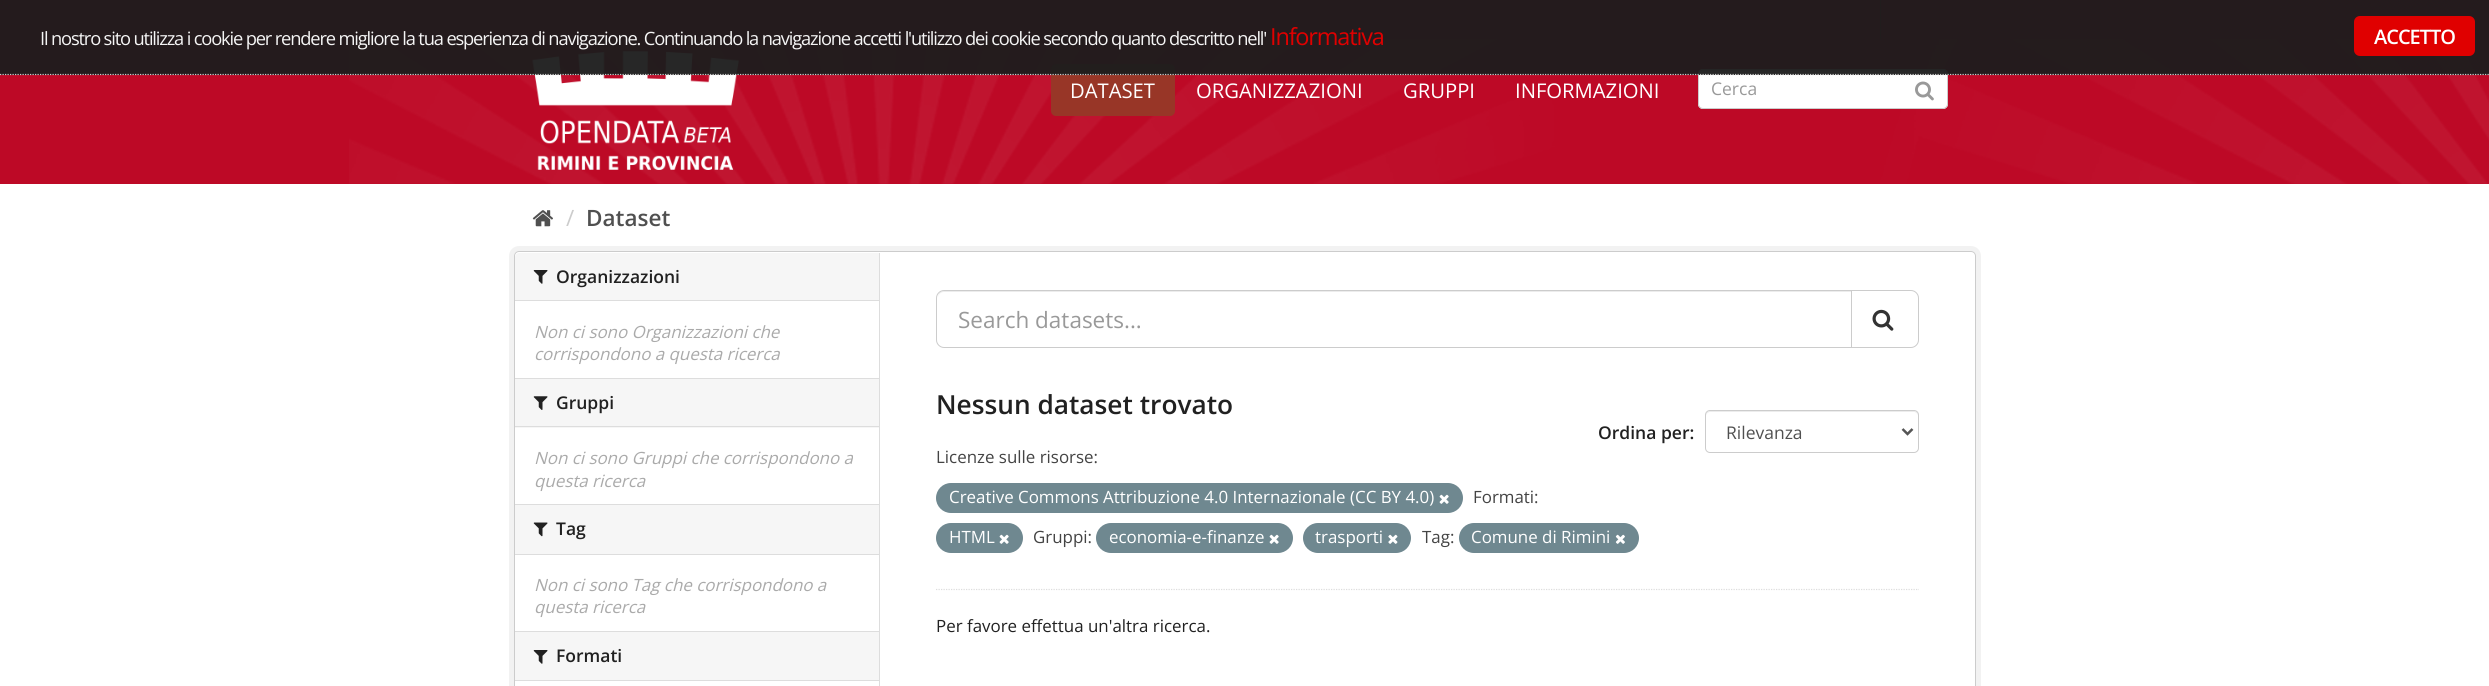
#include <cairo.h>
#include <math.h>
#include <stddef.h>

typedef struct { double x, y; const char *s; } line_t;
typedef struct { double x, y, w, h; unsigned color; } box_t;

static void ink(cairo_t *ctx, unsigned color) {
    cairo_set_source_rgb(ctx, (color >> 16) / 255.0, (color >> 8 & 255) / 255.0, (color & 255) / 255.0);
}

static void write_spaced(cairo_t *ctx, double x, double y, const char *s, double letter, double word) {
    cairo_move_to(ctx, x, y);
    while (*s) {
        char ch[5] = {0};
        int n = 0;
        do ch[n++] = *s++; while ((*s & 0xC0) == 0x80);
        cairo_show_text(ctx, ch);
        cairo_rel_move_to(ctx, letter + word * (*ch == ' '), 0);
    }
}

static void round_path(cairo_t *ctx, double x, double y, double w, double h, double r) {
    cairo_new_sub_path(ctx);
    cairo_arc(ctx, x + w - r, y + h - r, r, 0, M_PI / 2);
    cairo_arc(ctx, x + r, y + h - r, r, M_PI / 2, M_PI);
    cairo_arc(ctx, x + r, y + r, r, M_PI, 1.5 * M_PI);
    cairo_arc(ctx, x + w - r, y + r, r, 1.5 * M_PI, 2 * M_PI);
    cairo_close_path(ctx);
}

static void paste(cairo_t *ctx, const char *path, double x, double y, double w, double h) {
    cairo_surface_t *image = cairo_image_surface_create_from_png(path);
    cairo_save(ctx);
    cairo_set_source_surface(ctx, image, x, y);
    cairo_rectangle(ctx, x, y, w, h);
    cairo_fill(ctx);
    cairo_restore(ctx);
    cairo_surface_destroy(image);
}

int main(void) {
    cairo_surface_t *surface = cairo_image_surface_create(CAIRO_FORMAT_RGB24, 2489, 686);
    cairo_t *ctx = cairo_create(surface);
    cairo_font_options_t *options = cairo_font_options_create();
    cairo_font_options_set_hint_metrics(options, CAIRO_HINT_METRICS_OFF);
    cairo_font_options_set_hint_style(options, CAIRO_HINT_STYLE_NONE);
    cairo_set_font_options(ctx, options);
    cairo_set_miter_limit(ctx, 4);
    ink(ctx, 0xFFFFFF);
    cairo_paint(ctx);
    ink(ctx, 0xBD0926);
    cairo_rectangle(ctx, 0, 0, 2489, 184);
    cairo_fill(ctx);
    ink(ctx, 0x842F22);
    cairo_rectangle(ctx, 1880, 0, 1, 39);
    cairo_fill(ctx);
    paste(ctx, "media/1.png", 349, 39, 2140, 145);
    paste(ctx, "media/2.png", 532, 51, 207, 119);
    ink(ctx, 0x983627);
    round_path(ctx, 1051, 64, 124, 52, 5);
    cairo_fill(ctx);
    ink(ctx, 0xFFFFFF);
    round_path(ctx, 1698, 69, 250, 40, 5);
    cairo_fill(ctx);
    ink(ctx, 0xECECEC);
    cairo_new_path(ctx);
    cairo_move_to(ctx, 1702, 71);
    cairo_line_to(ctx, 1942, 71);
    cairo_curve_to(ctx, 1945, 71, 1946, 73, 1946, 75);
    cairo_line_to(ctx, 1946, 74);
    cairo_curve_to(ctx, 1946, 72, 1944, 70, 1942, 70);
    cairo_line_to(ctx, 1703, 70);
    cairo_curve_to(ctx, 1701, 70, 1699, 72, 1699, 74);
    cairo_line_to(ctx, 1699, 75);
    cairo_curve_to(ctx, 1699, 73, 1700, 71, 1702, 71);
    cairo_close_path(ctx);
    cairo_fill(ctx);
    round_path(ctx, 1698.5, 69.5, 249, 39, 4.5);
    ink(ctx, 0xCCCCCC);
    cairo_set_line_width(ctx, 1);
    cairo_stroke(ctx);
    cairo_set_source_rgba(ctx, 0.114, 0.114, 0.114, 0.95);
    cairo_rectangle(ctx, 0, 0, 2489, 75);
    cairo_fill(ctx);
    cairo_new_path(ctx);
    cairo_move_to(ctx, 0, 74.5);
    cairo_line_to(ctx, 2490, 74.5);
    ink(ctx, 0xCCCCCC);
    cairo_set_line_width(ctx, 1.2);
    cairo_set_dash(ctx, (double[]){1.25, 1.25}, 2, 0);
    cairo_stroke(ctx);
    cairo_select_font_face(ctx, "Open Sans", CAIRO_FONT_SLANT_NORMAL, CAIRO_FONT_WEIGHT_NORMAL);
    cairo_set_font_size(ctx, 18.33);
    ink(ctx, 0xF5F5F5);
    write_spaced(ctx, 40, 45, "Il nostro sito utilizza i cookie per rendere migliore la tua esperienza di navigazione. Continuando la navigazione accetti l'utilizzo dei cookie secondo quanto descritto nell'", -1.17, 0);
    cairo_set_font_size(ctx, 23.5);
    ink(ctx, 0xE00000);
    write_spaced(ctx, 1270, 45, "Informativa", -1.17, 0);
    round_path(ctx, 2354, 16, 121, 40, 6);
    cairo_fill(ctx);
    cairo_select_font_face(ctx, "Open Sans SemiBold", CAIRO_FONT_SLANT_NORMAL, CAIRO_FONT_WEIGHT_NORMAL);
    cairo_set_font_size(ctx, 20);
    ink(ctx, 0xFFFFFF);
    write_spaced(ctx, 2374, 44, "ACCETTO", -1, 0);
    cairo_select_font_face(ctx, "Open Sans", CAIRO_FONT_SLANT_NORMAL, CAIRO_FONT_WEIGHT_NORMAL);
    cairo_set_font_size(ctx, 20.25);
    {
        static const line_t items[] = {
            {1070, 98, "DATASET"},
            {1196, 98, "ORGANIZZAZIONI"},
            {1403, 98, "GRUPPI"},
            {1515, 98, "INFORMAZIONI"},
        };
        for (size_t i = 0; i < sizeof items / sizeof *items; i++) {
            cairo_move_to(ctx, items[i].x, items[i].y);
            cairo_show_text(ctx, items[i].s);
        }
    }
    cairo_set_font_size(ctx, 17.5);
    ink(ctx, 0x999999);
    cairo_move_to(ctx, 1711, 95);
    cairo_show_text(ctx, "Cerca");
    paste(ctx, "media/3.png", 1915, 81, 19, 20);
    paste(ctx, "media/4.png", 532, 210, 21, 17);
    cairo_set_font_size(ctx, 22.5);
    ink(ctx, 0xCCCCCC);
    cairo_move_to(ctx, 566, 226);
    cairo_show_text(ctx, "/");
    cairo_select_font_face(ctx, "Open Sans SemiBold", CAIRO_FONT_SLANT_NORMAL, CAIRO_FONT_WEIGHT_NORMAL);
    ink(ctx, 0x505050);
    cairo_move_to(ctx, 586, 226);
    cairo_show_text(ctx, "Dataset");
    round_path(ctx, 511.5, 248.5, 1467, 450, 7.5);
    ink(ctx, 0xF2F2F2);
    cairo_set_line_width(ctx, 5);
    cairo_set_dash(ctx, NULL, 0, 0);
    cairo_stroke(ctx);
    ink(ctx, 0xFFFFFF);
    round_path(ctx, 514.5, 251.5, 1461, 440, 4.5);
    cairo_fill_preserve(ctx);
    ink(ctx, 0xCCCCCC);
    cairo_set_line_width(ctx, 1);
    cairo_stroke(ctx);
    ink(ctx, 0xF6F6F6);
    cairo_new_path(ctx);
    cairo_move_to(ctx, 519, 253);
    cairo_line_to(ctx, 879, 253);
    cairo_line_to(ctx, 879, 301);
    cairo_line_to(ctx, 515, 301);
    cairo_line_to(ctx, 515, 257);
    cairo_curve_to(ctx, 515, 255, 517, 253, 519, 253);
    cairo_close_path(ctx);
    cairo_fill(ctx);
    ink(ctx, 0xDDDDDD);
    cairo_rectangle(ctx, 515, 300, 364, 1);
    cairo_fill(ctx);
    paste(ctx, "media/5.png", 533, 270, 15, 14);
    cairo_set_font_size(ctx, 17.5);
    ink(ctx, 0x212121);
    cairo_move_to(ctx, 556, 283);
    cairo_show_text(ctx, "Organizzazioni");
    cairo_select_font_face(ctx, "Open Sans", CAIRO_FONT_SLANT_ITALIC, CAIRO_FONT_WEIGHT_NORMAL);
    cairo_set_font_size(ctx, 16.9);
    ink(ctx, 0xAAAAAA);
    cairo_move_to(ctx, 534, 338);
    cairo_show_text(ctx, "Non ci sono Organizzazioni che");
    cairo_move_to(ctx, 534, 360);
    cairo_show_text(ctx, "corrispondono a questa ricerca");
    {
        static const box_t items[] = {
            {515, 379, 364, 49, 0xF6F6F6},
            {515, 378, 364, 1, 0xDDDDDD},
            {515, 426, 364, 1, 0xDDDDDD},
        };
        for (size_t i = 0; i < sizeof items / sizeof *items; i++) {
            ink(ctx, items[i].color);
            cairo_rectangle(ctx, items[i].x, items[i].y, items[i].w, items[i].h);
            cairo_fill(ctx);
        }
    }
    paste(ctx, "media/6.png", 533, 396, 15, 14);
    cairo_select_font_face(ctx, "Open Sans SemiBold", CAIRO_FONT_SLANT_NORMAL, CAIRO_FONT_WEIGHT_NORMAL);
    cairo_set_font_size(ctx, 17.5);
    ink(ctx, 0x212121);
    cairo_move_to(ctx, 556, 409);
    cairo_show_text(ctx, "Gruppi");
    cairo_select_font_face(ctx, "Open Sans", CAIRO_FONT_SLANT_ITALIC, CAIRO_FONT_WEIGHT_NORMAL);
    cairo_set_font_size(ctx, 16.9);
    ink(ctx, 0xAAAAAA);
    cairo_move_to(ctx, 534, 464);
    cairo_show_text(ctx, "Non ci sono Gruppi che corrispondono a");
    cairo_move_to(ctx, 534, 487);
    cairo_show_text(ctx, "questa ricerca");
    {
        static const box_t items[] = {
            {515, 505, 364, 49, 0xF6F6F6},
            {515, 504, 364, 1, 0xDDDDDD},
            {515, 554, 364, 1, 0xDDDDDD},
        };
        for (size_t i = 0; i < sizeof items / sizeof *items; i++) {
            ink(ctx, items[i].color);
            cairo_rectangle(ctx, items[i].x, items[i].y, items[i].w, items[i].h);
            cairo_fill(ctx);
        }
    }
    paste(ctx, "media/7.png", 533, 522, 15, 15);
    cairo_select_font_face(ctx, "Open Sans SemiBold", CAIRO_FONT_SLANT_NORMAL, CAIRO_FONT_WEIGHT_NORMAL);
    cairo_set_font_size(ctx, 17.5);
    ink(ctx, 0x212121);
    cairo_move_to(ctx, 556, 535);
    cairo_show_text(ctx, "Tag");
    cairo_select_font_face(ctx, "Open Sans", CAIRO_FONT_SLANT_ITALIC, CAIRO_FONT_WEIGHT_NORMAL);
    cairo_set_font_size(ctx, 16.9);
    ink(ctx, 0xAAAAAA);
    cairo_move_to(ctx, 534, 591);
    cairo_show_text(ctx, "Non ci sono Tag che corrispondono a");
    cairo_move_to(ctx, 534, 613);
    cairo_show_text(ctx, "questa ricerca");
    {
        static const box_t items[] = {
            {515, 632, 364, 48, 0xF6F6F6},
            {515, 631, 364, 1, 0xDDDDDD},
            {515, 680, 364, 1, 0xDDDDDD},
        };
        for (size_t i = 0; i < sizeof items / sizeof *items; i++) {
            ink(ctx, items[i].color);
            cairo_rectangle(ctx, items[i].x, items[i].y, items[i].w, items[i].h);
            cairo_fill(ctx);
        }
    }
    paste(ctx, "media/5.png", 533, 650, 15, 14);
    cairo_select_font_face(ctx, "Open Sans SemiBold", CAIRO_FONT_SLANT_NORMAL, CAIRO_FONT_WEIGHT_NORMAL);
    cairo_set_font_size(ctx, 17.5);
    ink(ctx, 0x212121);
    cairo_move_to(ctx, 556, 662);
    cairo_show_text(ctx, "Formati");
    ink(ctx, 0xDDDDDD);
    cairo_rectangle(ctx, 879, 253, 1, 433);
    cairo_fill(ctx);
    cairo_new_path(ctx);
    cairo_move_to(ctx, 936, 589.5);
    cairo_line_to(ctx, 1919, 589.5);
    cairo_set_line_width(ctx, 1.2);
    cairo_set_dash(ctx, (double[]){1.25, 1.25}, 2, 0);
    cairo_stroke(ctx);
    ink(ctx, 0xECECEC);
    cairo_new_path(ctx);
    cairo_move_to(ctx, 944, 292);
    cairo_line_to(ctx, 1851, 292);
    cairo_line_to(ctx, 1851, 291);
    cairo_line_to(ctx, 944, 291);
    cairo_curve_to(ctx, 939, 291, 938, 295, 938, 299);
    cairo_curve_to(ctx, 938, 295, 940, 292, 944, 292);
    cairo_close_path(ctx);
    cairo_fill(ctx);
    cairo_new_path(ctx);
    cairo_move_to(ctx, 944, 290.5);
    cairo_line_to(ctx, 1852.5, 290.5);
    cairo_line_to(ctx, 1852.5, 347.5);
    cairo_line_to(ctx, 944, 347.5);
    cairo_curve_to(ctx, 940, 347.5, 936.5, 344, 936.5, 340);
    cairo_line_to(ctx, 936.5, 298);
    cairo_curve_to(ctx, 936.5, 294, 940, 290.5, 944, 290.5);
    cairo_close_path(ctx);
    ink(ctx, 0xCCCCCC);
    cairo_set_line_width(ctx, 1);
    cairo_set_dash(ctx, NULL, 0, 0);
    cairo_stroke(ctx);
    cairo_select_font_face(ctx, "Open Sans", CAIRO_FONT_SLANT_NORMAL, CAIRO_FONT_WEIGHT_NORMAL);
    cairo_set_font_size(ctx, 22.5);
    ink(ctx, 0x999999);
    cairo_move_to(ctx, 958, 328);
    cairo_show_text(ctx, "Search datasets...");
    ink(ctx, 0xFFFFFF);
    cairo_new_path(ctx);
    cairo_move_to(ctx, 1851.5, 290.5);
    cairo_line_to(ctx, 1911, 290.5);
    cairo_curve_to(ctx, 1915, 290.5, 1918.5, 294, 1918.5, 298);
    cairo_line_to(ctx, 1918.5, 340);
    cairo_curve_to(ctx, 1918.5, 344, 1915, 347.5, 1911, 347.5);
    cairo_line_to(ctx, 1851.5, 347.5);
    cairo_close_path(ctx);
    cairo_fill_preserve(ctx);
    ink(ctx, 0xCCCCCC);
    cairo_stroke(ctx);
    paste(ctx, "media/8.png", 1872, 309, 22, 22);
    cairo_select_font_face(ctx, "Open Sans SemiBold", CAIRO_FONT_SLANT_NORMAL, CAIRO_FONT_WEIGHT_NORMAL);
    cairo_set_font_size(ctx, 26.25);
    ink(ctx, 0x212121);
    cairo_move_to(ctx, 936, 414);
    cairo_show_text(ctx, "Nessun dataset trovato");
    cairo_set_font_size(ctx, 17.5);
    cairo_move_to(ctx, 1598, 439);
    cairo_show_text(ctx, "Ordina per:");
    ink(ctx, 0xECECEC);
    cairo_new_path(ctx);
    cairo_move_to(ctx, 1710, 412);
    cairo_line_to(ctx, 1914, 412);
    cairo_curve_to(ctx, 1916, 412, 1918, 414, 1918, 416);
    cairo_line_to(ctx, 1918, 415);
    cairo_curve_to(ctx, 1918, 413, 1916, 411, 1914, 411);
    cairo_line_to(ctx, 1710, 411);
    cairo_curve_to(ctx, 1708, 411, 1706, 413, 1706, 415);
    cairo_line_to(ctx, 1706, 416);
    cairo_curve_to(ctx, 1706, 414, 1708, 412, 1710, 412);
    cairo_close_path(ctx);
    cairo_fill(ctx);
    round_path(ctx, 1705.5, 410.5, 213, 42, 4.5);
    ink(ctx, 0xCCCCCC);
    cairo_stroke(ctx);
    cairo_new_path(ctx);
    cairo_move_to(ctx, 1902.5, 429);
    cairo_line_to(ctx, 1907.5, 434);
    cairo_line_to(ctx, 1912.5, 429);
    ink(ctx, 0x555555);
    cairo_set_line_width(ctx, 2.5);
    cairo_stroke(ctx);
    cairo_select_font_face(ctx, "Open Sans", CAIRO_FONT_SLANT_NORMAL, CAIRO_FONT_WEIGHT_NORMAL);
    ink(ctx, 0x505050);
    cairo_move_to(ctx, 1726, 439);
    cairo_show_text(ctx, "Rilevanza");
    cairo_set_font_size(ctx, 16.9);
    ink(ctx, 0x444444);
    cairo_move_to(ctx, 936, 463);
    cairo_show_text(ctx, "Licenze sulle risorse:");
    ink(ctx, 0x6F8890);
    round_path(ctx, 936, 483, 527, 30, 15);
    cairo_fill(ctx);
    ink(ctx, 0xFFFFFF);
    cairo_move_to(ctx, 949, 503);
    cairo_show_text(ctx, "Creative Commons Attribuzione 4.0 Internazionale (CC BY 4.0)");
    paste(ctx, "media/9.png", 1439, 494, 10, 10);
    ink(ctx, 0x444444);
    cairo_move_to(ctx, 1473, 503);
    cairo_show_text(ctx, "Formati:");
    ink(ctx, 0x6F8890);
    round_path(ctx, 936, 523, 87, 30, 15);
    cairo_fill(ctx);
    ink(ctx, 0xFFFFFF);
    cairo_move_to(ctx, 949, 543);
    cairo_show_text(ctx, "HTML");
    paste(ctx, "media/9.png", 999, 534, 10, 10);
    ink(ctx, 0x444444);
    cairo_move_to(ctx, 1033, 543);
    cairo_show_text(ctx, "Gruppi:");
    ink(ctx, 0x6F8890);
    round_path(ctx, 1096, 523, 197, 30, 15);
    cairo_fill(ctx);
    ink(ctx, 0xFFFFFF);
    cairo_move_to(ctx, 1109, 543);
    cairo_show_text(ctx, "economia-e-finanze");
    paste(ctx, "media/9.png", 1269, 534, 10, 10);
    ink(ctx, 0x6F8890);
    round_path(ctx, 1303, 523, 108, 30, 15);
    cairo_fill(ctx);
    ink(ctx, 0xFFFFFF);
    cairo_move_to(ctx, 1315, 543);
    cairo_show_text(ctx, "trasporti");
    paste(ctx, "media/10.png", 1388, 534, 10, 10);
    ink(ctx, 0x444444);
    cairo_move_to(ctx, 1422, 543);
    cairo_show_text(ctx, "Tag:");
    ink(ctx, 0x6F8890);
    round_path(ctx, 1459, 523, 180, 30, 15);
    cairo_fill(ctx);
    ink(ctx, 0xFFFFFF);
    cairo_move_to(ctx, 1471, 543);
    cairo_show_text(ctx, "Comune di Rimini");
    paste(ctx, "media/11.png", 1615, 534, 10, 10);
    ink(ctx, 0x212121);
    cairo_move_to(ctx, 936, 632);
    cairo_show_text(ctx, "Per favore effettua un'altra ricerca.");
    cairo_surface_write_to_png(surface, "image.png");
    cairo_font_options_destroy(options);
    cairo_destroy(ctx);
    cairo_surface_destroy(surface);
    return 0;
}
